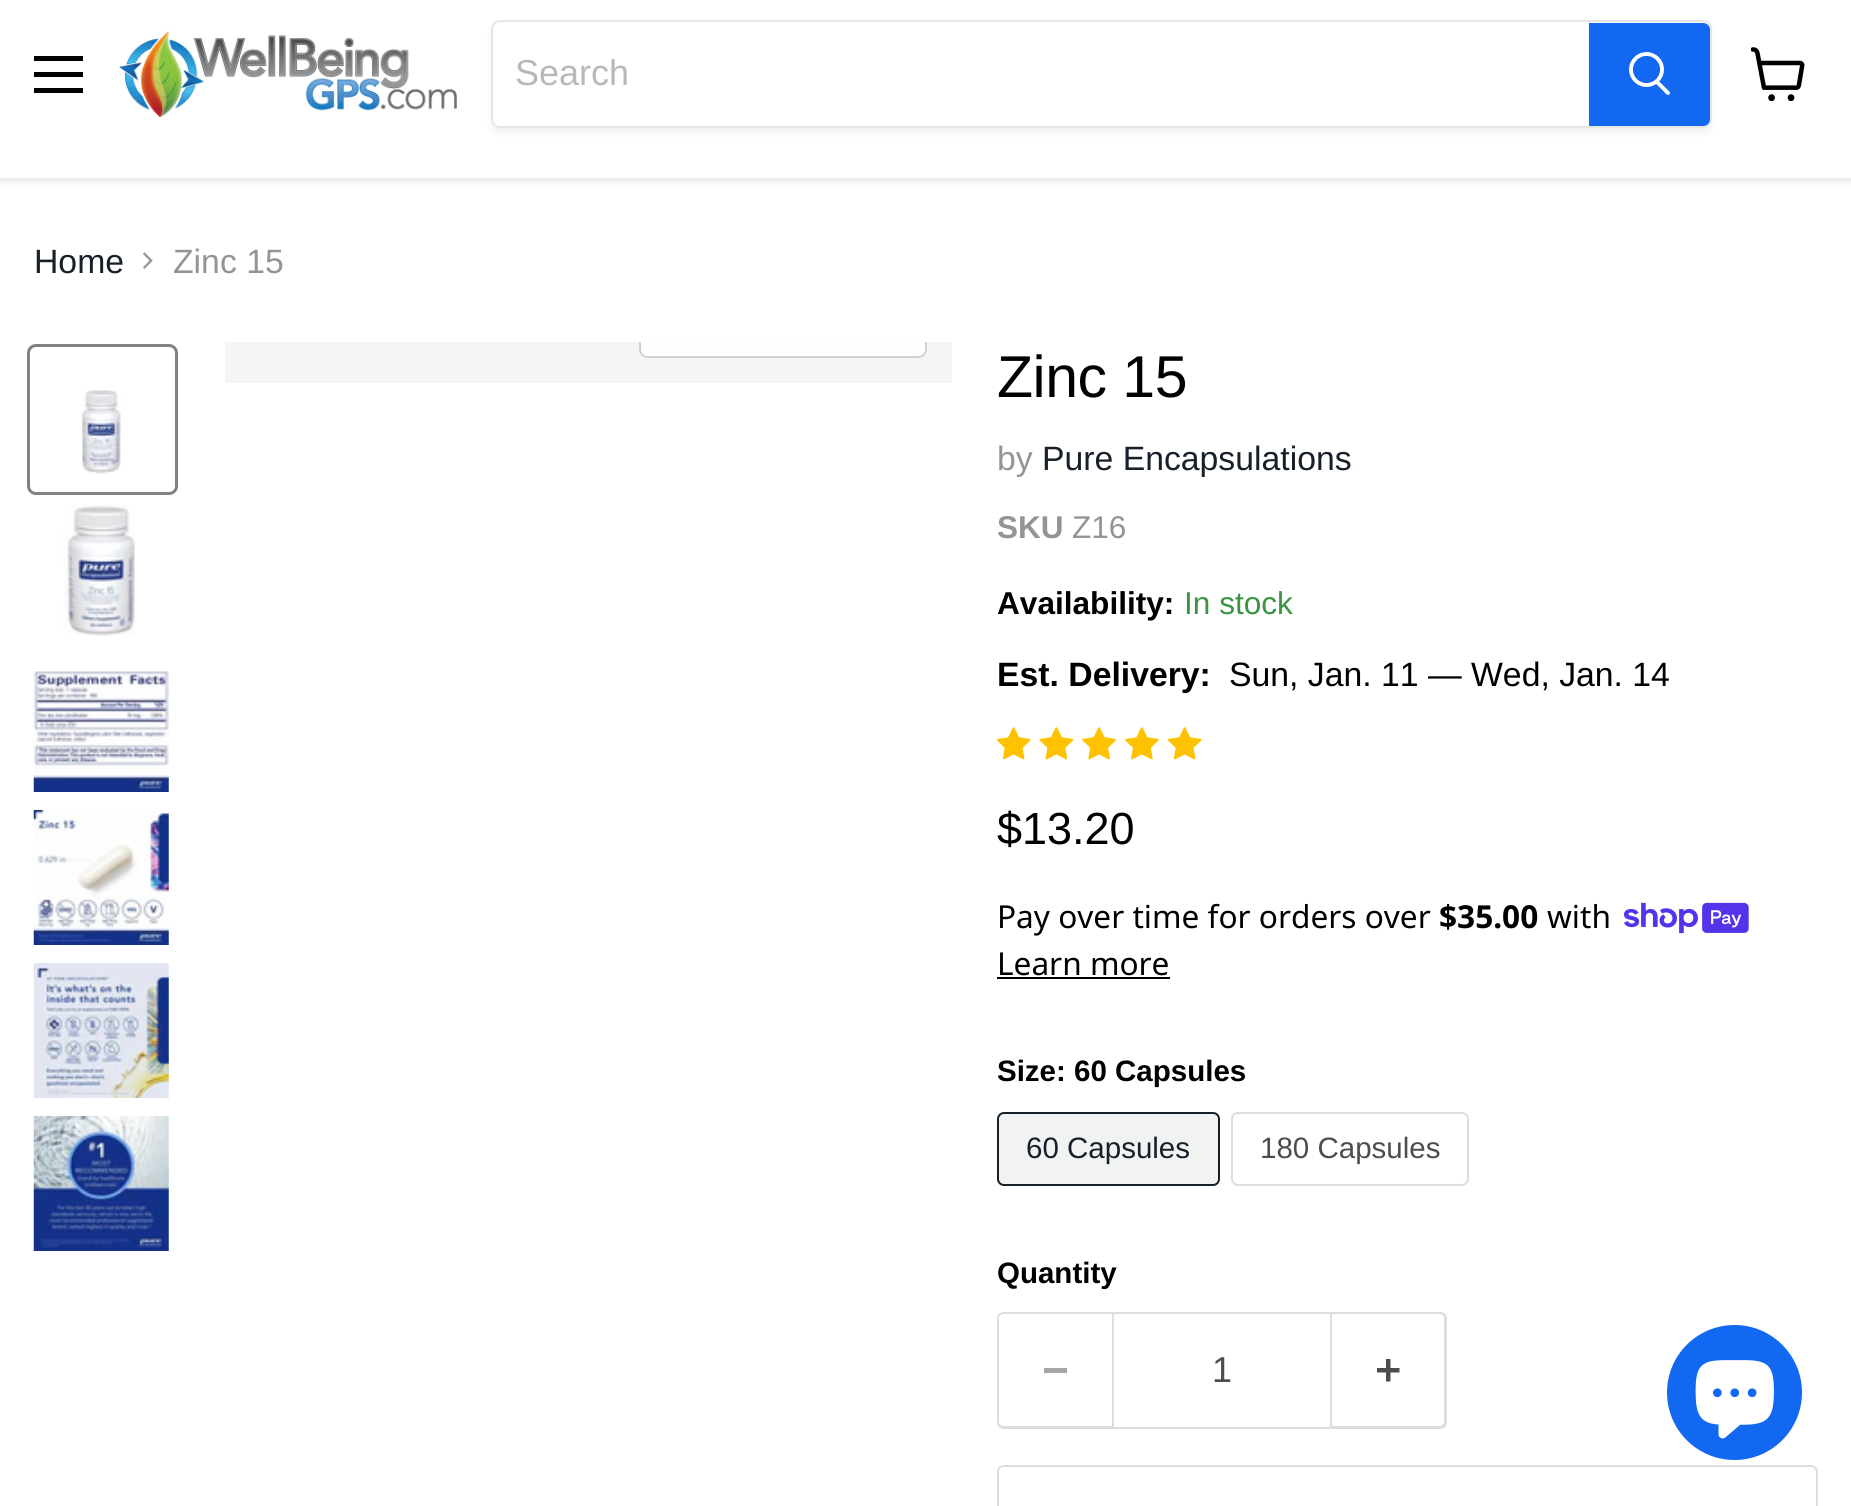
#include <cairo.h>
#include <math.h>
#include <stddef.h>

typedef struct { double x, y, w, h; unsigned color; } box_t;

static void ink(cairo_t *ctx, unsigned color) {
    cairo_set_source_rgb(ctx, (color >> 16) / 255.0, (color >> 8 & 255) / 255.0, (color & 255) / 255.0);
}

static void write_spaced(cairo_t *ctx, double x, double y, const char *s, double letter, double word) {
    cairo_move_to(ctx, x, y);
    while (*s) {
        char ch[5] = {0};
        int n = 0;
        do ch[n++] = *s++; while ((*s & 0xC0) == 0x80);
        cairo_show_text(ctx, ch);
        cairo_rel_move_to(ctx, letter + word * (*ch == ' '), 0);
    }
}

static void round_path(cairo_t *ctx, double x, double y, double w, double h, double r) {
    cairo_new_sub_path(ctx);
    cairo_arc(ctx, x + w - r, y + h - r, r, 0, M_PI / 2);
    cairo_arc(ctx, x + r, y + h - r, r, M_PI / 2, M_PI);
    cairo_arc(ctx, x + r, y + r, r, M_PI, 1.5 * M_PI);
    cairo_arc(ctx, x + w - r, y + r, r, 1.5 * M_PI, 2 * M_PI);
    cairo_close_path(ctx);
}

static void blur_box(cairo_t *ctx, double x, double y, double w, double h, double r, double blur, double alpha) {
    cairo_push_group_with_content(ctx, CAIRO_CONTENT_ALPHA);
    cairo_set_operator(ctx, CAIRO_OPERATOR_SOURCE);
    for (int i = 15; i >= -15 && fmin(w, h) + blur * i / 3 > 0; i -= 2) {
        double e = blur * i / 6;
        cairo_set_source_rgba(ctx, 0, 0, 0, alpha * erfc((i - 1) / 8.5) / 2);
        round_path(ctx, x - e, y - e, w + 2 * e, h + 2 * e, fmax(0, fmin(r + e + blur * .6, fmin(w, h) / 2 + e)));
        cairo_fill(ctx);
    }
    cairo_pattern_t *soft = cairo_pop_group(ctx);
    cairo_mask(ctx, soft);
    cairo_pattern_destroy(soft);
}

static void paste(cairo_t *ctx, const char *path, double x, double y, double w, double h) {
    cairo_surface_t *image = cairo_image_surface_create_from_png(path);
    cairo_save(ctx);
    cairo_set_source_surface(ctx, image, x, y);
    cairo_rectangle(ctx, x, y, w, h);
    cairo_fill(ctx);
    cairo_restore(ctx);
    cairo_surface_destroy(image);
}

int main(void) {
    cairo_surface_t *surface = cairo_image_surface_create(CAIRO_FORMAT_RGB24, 1851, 1506);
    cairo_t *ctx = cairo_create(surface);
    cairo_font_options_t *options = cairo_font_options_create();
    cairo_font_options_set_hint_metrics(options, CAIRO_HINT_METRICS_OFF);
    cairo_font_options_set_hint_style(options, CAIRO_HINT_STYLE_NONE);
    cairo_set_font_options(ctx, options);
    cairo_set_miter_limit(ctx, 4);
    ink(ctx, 0xFFFFFF);
    cairo_paint(ctx);
    ink(ctx, 0x808080);
    blur_box(ctx, 0, 2, 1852, 178, 0, 4.5, 0.25);
    {
        static const box_t items[] = {
            {0, 0, 1851, 178, 0xFFFFFF},
            {34, 56, 49, 5, 0x000000},
            {34, 72, 49, 5, 0x000000},
            {34, 88, 49, 5, 0x000000},
        };
        for (size_t i = 0; i < sizeof items / sizeof *items; i++) {
            ink(ctx, items[i].color);
            cairo_rectangle(ctx, items[i].x, items[i].y, items[i].w, items[i].h);
            cairo_fill(ctx);
        }
    }
    paste(ctx, "media/1.png", 119, 31, 338, 86);
    ink(ctx, 0x808080);
    blur_box(ctx, 491, 25, 1221, 108, 9, 3.5, 0.11);
    round_path(ctx, 492, 21, 1219, 106, 8);
    ink(ctx, 0xE6E6E6);
    cairo_stroke(ctx);
    ink(ctx, 0xFFFFFF);
    cairo_new_path(ctx);
    cairo_move_to(ctx, 500, 23);
    cairo_line_to(ctx, 1589, 23);
    cairo_line_to(ctx, 1589, 126);
    cairo_line_to(ctx, 500, 126);
    cairo_curve_to(ctx, 496, 126, 493, 123, 493, 119);
    cairo_line_to(ctx, 493, 30);
    cairo_curve_to(ctx, 493, 26, 496, 23, 500, 23);
    cairo_close_path(ctx);
    cairo_fill(ctx);
    cairo_select_font_face(ctx, "Liberation Sans", CAIRO_FONT_SLANT_NORMAL, CAIRO_FONT_WEIGHT_NORMAL);
    cairo_set_font_size(ctx, 36);
    ink(ctx, 0xB8B8B8);
    cairo_move_to(ctx, 515, 85);
    cairo_show_text(ctx, "Search");
    ink(ctx, 0x1268F1);
    cairo_new_path(ctx);
    cairo_move_to(ctx, 1590, 24);
    cairo_line_to(ctx, 1703, 24);
    cairo_curve_to(ctx, 1706.5, 24, 1709, 26.5, 1709, 30);
    cairo_line_to(ctx, 1709, 119);
    cairo_curve_to(ctx, 1709, 122.5, 1706.5, 125, 1703, 125);
    cairo_line_to(ctx, 1590, 125);
    cairo_close_path(ctx);
    cairo_fill_preserve(ctx);
    cairo_stroke(ctx);
    cairo_new_path(ctx);
    cairo_move_to(ctx, 1668, 93);
    cairo_line_to(ctx, 1657, 82);
    ink(ctx, 0xFFFFFF);
    cairo_set_line_width(ctx, 3.9);
    cairo_set_line_cap(ctx, CAIRO_LINE_CAP_ROUND);
    cairo_stroke(ctx);
    cairo_arc(ctx, 1646.5, 69.5, 15.5, 0, 2 * M_PI);
    cairo_set_line_cap(ctx, CAIRO_LINE_CAP_BUTT);
    cairo_stroke(ctx);
    paste(ctx, "media/2.png", 1751, 47, 54, 54);
    cairo_set_font_size(ctx, 33.75);
    ink(ctx, 0x171F2B);
    cairo_move_to(ctx, 34, 273);
    cairo_show_text(ctx, "Home");
    paste(ctx, "media/3.png", 143, 252, 10, 17);
    ink(ctx, 0x949494);
    cairo_move_to(ctx, 173, 273);
    cairo_show_text(ctx, "Zinc 15");
    round_path(ctx, 28.5, 345.5, 148, 148, 7.5);
    ink(ctx, 0x818181);
    cairo_set_line_width(ctx, 3);
    cairo_stroke(ctx);
    paste(ctx, "media/4.png", 81, 390, 41, 84);
    paste(ctx, "media/5.png", 63, 504, 72, 132);
    paste(ctx, "media/6.png", 33, 671, 136, 121);
    paste(ctx, "media/7.png", 33, 810, 136, 135);
    paste(ctx, "media/8.png", 33, 963, 136, 135);
    paste(ctx, "media/9.png", 33, 1116, 136, 135);
    ink(ctx, 0xF5F5F5);
    cairo_rectangle(ctx, 225, 342, 727, 41);
    cairo_fill(ctx);
    cairo_save(ctx);
    cairo_rectangle(ctx, 225, 342, 727, 41);
    cairo_clip(ctx);
    round_path(ctx, 640, 294, 286, 63, 8);
    ink(ctx, 0xD0D0D0);
    cairo_set_line_width(ctx, 2);
    cairo_stroke(ctx);
    cairo_restore(ctx);
    cairo_set_source_rgba(ctx, 1, 1, 1, 0.9);
    cairo_new_path(ctx);
    cairo_move_to(ctx, 641, 342);
    cairo_line_to(ctx, 925, 342);
    cairo_line_to(ctx, 925, 349);
    cairo_curve_to(ctx, 925, 353, 922, 356, 918, 356);
    cairo_line_to(ctx, 648, 356);
    cairo_curve_to(ctx, 644, 356, 641, 353, 641, 349);
    cairo_close_path(ctx);
    cairo_fill(ctx);
    cairo_set_font_size(ctx, 59);
    ink(ctx, 0x000000);
    write_spaced(ctx, 997, 397, "Zinc 15", -0.5, 0);
    cairo_set_font_size(ctx, 33.75);
    ink(ctx, 0x949494);
    cairo_move_to(ctx, 997, 470);
    cairo_show_text(ctx, "by");
    ink(ctx, 0x171F2B);
    cairo_move_to(ctx, 1042, 470);
    cairo_show_text(ctx, "Pure Encapsulations");
    cairo_select_font_face(ctx, "Liberation Sans", CAIRO_FONT_SLANT_NORMAL, CAIRO_FONT_WEIGHT_BOLD);
    cairo_set_font_size(ctx, 31.5);
    ink(ctx, 0x949494);
    cairo_move_to(ctx, 997, 538);
    cairo_show_text(ctx, "SKU");
    cairo_select_font_face(ctx, "Liberation Sans", CAIRO_FONT_SLANT_NORMAL, CAIRO_FONT_WEIGHT_NORMAL);
    cairo_move_to(ctx, 1072, 538);
    cairo_show_text(ctx, "Z16");
    cairo_select_font_face(ctx, "Liberation Sans", CAIRO_FONT_SLANT_NORMAL, CAIRO_FONT_WEIGHT_BOLD);
    cairo_set_font_size(ctx, 31.6);
    ink(ctx, 0x000000);
    cairo_move_to(ctx, 997, 614);
    cairo_show_text(ctx, "Availability:");
    cairo_select_font_face(ctx, "Liberation Sans", CAIRO_FONT_SLANT_NORMAL, CAIRO_FONT_WEIGHT_NORMAL);
    ink(ctx, 0x3C9342);
    cairo_move_to(ctx, 1184, 614);
    cairo_show_text(ctx, "In stock");
    cairo_select_font_face(ctx, "Liberation Sans", CAIRO_FONT_SLANT_NORMAL, CAIRO_FONT_WEIGHT_BOLD);
    cairo_set_font_size(ctx, 33.75);
    ink(ctx, 0x000000);
    cairo_move_to(ctx, 997, 686);
    cairo_show_text(ctx, "Est. Delivery:");
    cairo_select_font_face(ctx, "Liberation Sans", CAIRO_FONT_SLANT_NORMAL, CAIRO_FONT_WEIGHT_NORMAL);
    cairo_move_to(ctx, 1229, 686);
    cairo_show_text(ctx, "Sun, Jan. 11 — Wed, Jan. 14");
    paste(ctx, "media/10.png", 996, 727, 35, 33);
    paste(ctx, "media/11.png", 1039, 727, 35, 33);
    paste(ctx, "media/12.png", 1082, 727, 34, 33);
    paste(ctx, "media/13.png", 1125, 727, 34, 33);
    paste(ctx, "media/10.png", 1167, 727, 35, 33);
    cairo_set_font_size(ctx, 45);
    cairo_move_to(ctx, 997, 844);
    cairo_show_text(ctx, "$13.20");
    cairo_select_font_face(ctx, "Noto Sans", CAIRO_FONT_SLANT_NORMAL, CAIRO_FONT_WEIGHT_NORMAL);
    cairo_set_font_size(ctx, 31.6);
    cairo_move_to(ctx, 997, 928);
    cairo_show_text(ctx, "Pay over time for orders over");
    cairo_select_font_face(ctx, "Noto Sans", CAIRO_FONT_SLANT_NORMAL, CAIRO_FONT_WEIGHT_BOLD);
    cairo_move_to(ctx, 1439, 928);
    cairo_show_text(ctx, "$35.00");
    cairo_select_font_face(ctx, "Noto Sans", CAIRO_FONT_SLANT_NORMAL, CAIRO_FONT_WEIGHT_NORMAL);
    cairo_move_to(ctx, 1547, 928);
    cairo_show_text(ctx, "with");
    paste(ctx, "media/14.png", 1624, 902, 125, 32);
    cairo_move_to(ctx, 997, 975);
    cairo_show_text(ctx, "Learn more");
    cairo_rectangle(ctx, 997, 977, 173, 2);
    cairo_fill(ctx);
    cairo_select_font_face(ctx, "Liberation Sans", CAIRO_FONT_SLANT_NORMAL, CAIRO_FONT_WEIGHT_BOLD);
    cairo_set_font_size(ctx, 29.5);
    cairo_move_to(ctx, 997, 1081);
    cairo_show_text(ctx, "Size: 60 Capsules");
    ink(ctx, 0xF1F2F2);
    round_path(ctx, 998, 1113, 221, 72, 6);
    cairo_fill_preserve(ctx);
    ink(ctx, 0x171F2B);
    cairo_set_line_width(ctx, 2);
    cairo_stroke(ctx);
    cairo_select_font_face(ctx, "Liberation Sans", CAIRO_FONT_SLANT_NORMAL, CAIRO_FONT_WEIGHT_NORMAL);
    cairo_move_to(ctx, 1026, 1158);
    cairo_show_text(ctx, "60 Capsules");
    round_path(ctx, 1232, 1113, 236, 72, 6);
    ink(ctx, 0xDDDDDD);
    cairo_stroke(ctx);
    ink(ctx, 0x4D4D4D);
    cairo_move_to(ctx, 1260, 1158);
    cairo_show_text(ctx, "180 Capsules");
    cairo_select_font_face(ctx, "Liberation Sans", CAIRO_FONT_SLANT_NORMAL, CAIRO_FONT_WEIGHT_BOLD);
    ink(ctx, 0x000000);
    cairo_move_to(ctx, 997, 1283);
    cairo_show_text(ctx, "Quantity");
    ink(ctx, 0xDDDDDD);
    cairo_set_fill_rule(ctx, CAIRO_FILL_RULE_EVEN_ODD);
    cairo_new_path(ctx);
    cairo_move_to(ctx, 1004, 1312);
    cairo_line_to(ctx, 1112, 1312);
    cairo_line_to(ctx, 1112, 1429);
    cairo_line_to(ctx, 1004, 1429);
    cairo_curve_to(ctx, 1000, 1429, 997, 1426, 997, 1422);
    cairo_line_to(ctx, 997, 1318);
    cairo_curve_to(ctx, 997, 1315, 1000, 1312, 1004, 1312);
    cairo_close_path(ctx);
    cairo_move_to(ctx, 1004, 1314);
    cairo_line_to(ctx, 1112, 1314);
    cairo_line_to(ctx, 1112, 1426);
    cairo_line_to(ctx, 1004, 1426);
    cairo_curve_to(ctx, 1001, 1426, 999, 1424, 999, 1422);
    cairo_line_to(ctx, 999, 1318);
    cairo_curve_to(ctx, 999, 1316, 1001, 1314, 1004, 1314);
    cairo_close_path(ctx);
    cairo_fill(ctx);
    ink(ctx, 0xA6A6A6);
    cairo_rectangle(ctx, 1044, 1368, 23, 5);
    cairo_fill(ctx);
    cairo_rectangle(ctx, 1113, 1313, 218, 115);
    ink(ctx, 0xDDDDDD);
    cairo_stroke(ctx);
    cairo_select_font_face(ctx, "Liberation Sans", CAIRO_FONT_SLANT_NORMAL, CAIRO_FONT_WEIGHT_NORMAL);
    cairo_set_font_size(ctx, 36);
    ink(ctx, 0x4D4D4D);
    cairo_move_to(ctx, 1212, 1382);
    cairo_show_text(ctx, "1");
    ink(ctx, 0xDDDDDD);
    cairo_new_path(ctx);
    cairo_move_to(ctx, 1332, 1312);
    cairo_line_to(ctx, 1440, 1312);
    cairo_curve_to(ctx, 1444, 1312, 1447, 1315, 1447, 1318);
    cairo_line_to(ctx, 1447, 1422);
    cairo_curve_to(ctx, 1447, 1426, 1444, 1429, 1440, 1429);
    cairo_line_to(ctx, 1332, 1429);
    cairo_close_path(ctx);
    cairo_move_to(ctx, 1332, 1314);
    cairo_line_to(ctx, 1440, 1314);
    cairo_curve_to(ctx, 1442, 1314, 1444, 1316, 1444, 1318);
    cairo_line_to(ctx, 1444, 1422);
    cairo_curve_to(ctx, 1444, 1424, 1442, 1426, 1440, 1426);
    cairo_line_to(ctx, 1332, 1426);
    cairo_close_path(ctx);
    cairo_fill(ctx);
    paste(ctx, "media/15.png", 1377, 1359, 23, 23);
    round_path(ctx, 998, 1466, 819, 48, 6);
    cairo_stroke(ctx);
    ink(ctx, 0x1268F1);
    cairo_arc(ctx, 1734.5, 1392.5, 67.5, 0, 2 * M_PI);
    cairo_fill(ctx);
    paste(ctx, "media/16.png", 1695, 1360, 79, 79);
    cairo_surface_write_to_png(surface, "image.png");
    cairo_font_options_destroy(options);
    cairo_destroy(ctx);
    cairo_surface_destroy(surface);
    return 0;
}
